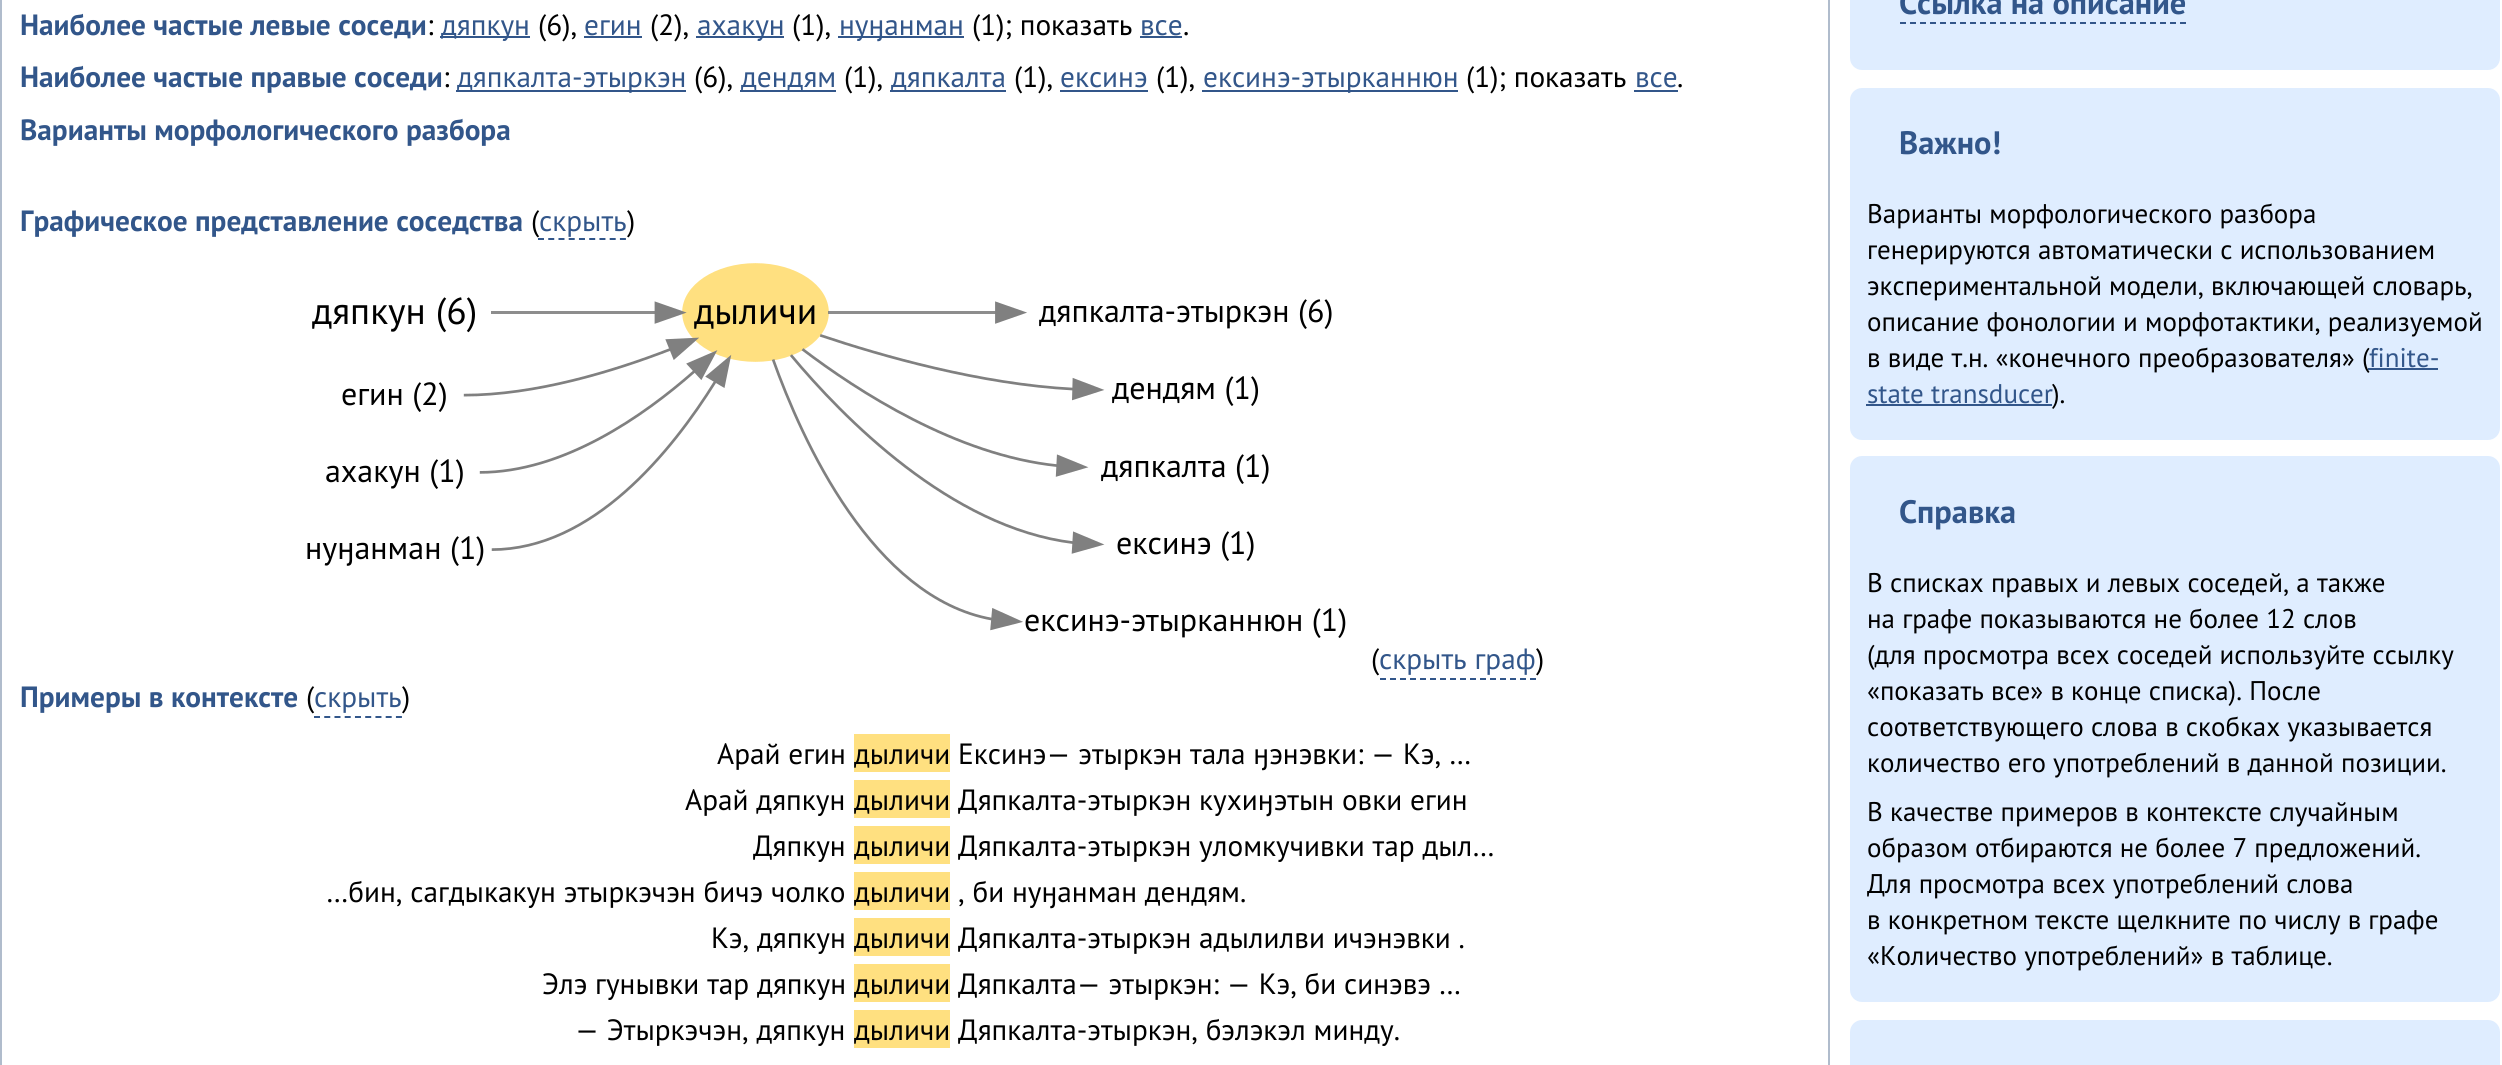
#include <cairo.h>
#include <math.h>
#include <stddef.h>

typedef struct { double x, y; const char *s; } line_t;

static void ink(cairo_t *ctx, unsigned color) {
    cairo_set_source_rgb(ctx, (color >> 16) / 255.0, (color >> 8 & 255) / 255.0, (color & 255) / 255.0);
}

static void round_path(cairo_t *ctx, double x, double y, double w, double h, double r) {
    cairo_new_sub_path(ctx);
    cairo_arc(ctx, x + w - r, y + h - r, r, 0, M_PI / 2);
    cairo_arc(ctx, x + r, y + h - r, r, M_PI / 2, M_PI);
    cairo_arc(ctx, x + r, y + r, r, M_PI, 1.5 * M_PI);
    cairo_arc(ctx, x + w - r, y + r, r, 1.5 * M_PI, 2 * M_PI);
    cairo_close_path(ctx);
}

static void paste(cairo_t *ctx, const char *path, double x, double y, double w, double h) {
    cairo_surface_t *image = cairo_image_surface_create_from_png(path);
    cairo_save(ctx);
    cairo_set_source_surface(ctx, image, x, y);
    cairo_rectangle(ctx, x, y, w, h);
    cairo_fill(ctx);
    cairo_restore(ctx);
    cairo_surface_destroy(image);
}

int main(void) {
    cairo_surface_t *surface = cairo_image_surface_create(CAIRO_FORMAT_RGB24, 2502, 1065);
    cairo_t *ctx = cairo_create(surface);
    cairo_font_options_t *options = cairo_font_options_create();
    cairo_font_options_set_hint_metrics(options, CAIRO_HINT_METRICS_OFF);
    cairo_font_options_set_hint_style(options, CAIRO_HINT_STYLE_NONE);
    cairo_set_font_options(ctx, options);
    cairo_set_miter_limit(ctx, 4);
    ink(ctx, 0xFFFFFF);
    cairo_paint(ctx);
    cairo_rectangle(ctx, 1, -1, 1828, 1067);
    ink(ctx, 0xB0BCCC);
    cairo_stroke(ctx);
    cairo_select_font_face(ctx, "PT Sans", CAIRO_FONT_SLANT_NORMAL, CAIRO_FONT_WEIGHT_BOLD);
    cairo_set_font_size(ctx, 29.3);
    ink(ctx, 0x32568A);
    cairo_move_to(ctx, 20, 35);
    cairo_show_text(ctx, "Наиболее частые левые соседи");
    cairo_select_font_face(ctx, "PT Sans", CAIRO_FONT_SLANT_NORMAL, CAIRO_FONT_WEIGHT_NORMAL);
    ink(ctx, 0x000000);
    cairo_move_to(ctx, 427, 35);
    cairo_show_text(ctx, ":");
    ink(ctx, 0x32568A);
    cairo_rectangle(ctx, 440, 36, 90, 2);
    cairo_fill(ctx);
    cairo_move_to(ctx, 441, 35);
    cairo_show_text(ctx, "дяпкун");
    ink(ctx, 0x000000);
    cairo_move_to(ctx, 538, 35);
    cairo_show_text(ctx, "(6),");
    ink(ctx, 0x32568A);
    cairo_move_to(ctx, 584, 35);
    cairo_show_text(ctx, "егин");
    cairo_rectangle(ctx, 584, 36, 58, 2);
    cairo_fill(ctx);
    ink(ctx, 0x000000);
    cairo_move_to(ctx, 650, 35);
    cairo_show_text(ctx, "(2),");
    ink(ctx, 0x32568A);
    cairo_rectangle(ctx, 696, 36, 88, 2);
    cairo_fill(ctx);
    cairo_move_to(ctx, 697, 35);
    cairo_show_text(ctx, "ахакун");
    ink(ctx, 0x000000);
    cairo_move_to(ctx, 792, 35);
    cairo_show_text(ctx, "(1),");
    ink(ctx, 0x32568A);
    cairo_rectangle(ctx, 838, 36, 126, 2);
    cairo_fill(ctx);
    cairo_move_to(ctx, 839, 35);
    cairo_show_text(ctx, "нуӈанман");
    ink(ctx, 0x000000);
    cairo_move_to(ctx, 972, 35);
    cairo_show_text(ctx, "(1); показать");
    ink(ctx, 0x32568A);
    cairo_move_to(ctx, 1140, 35);
    cairo_show_text(ctx, "все");
    cairo_rectangle(ctx, 1140, 36, 42, 2);
    cairo_fill(ctx);
    ink(ctx, 0x000000);
    cairo_move_to(ctx, 1183, 35);
    cairo_show_text(ctx, ".");
    cairo_select_font_face(ctx, "PT Sans", CAIRO_FONT_SLANT_NORMAL, CAIRO_FONT_WEIGHT_BOLD);
    ink(ctx, 0x32568A);
    cairo_move_to(ctx, 20, 87);
    cairo_show_text(ctx, "Наиболее частые правые соседи");
    cairo_select_font_face(ctx, "PT Sans", CAIRO_FONT_SLANT_NORMAL, CAIRO_FONT_WEIGHT_NORMAL);
    ink(ctx, 0x000000);
    cairo_move_to(ctx, 443, 87);
    cairo_show_text(ctx, ":");
    ink(ctx, 0x32568A);
    cairo_rectangle(ctx, 456, 90, 230, 2);
    cairo_fill(ctx);
    cairo_move_to(ctx, 457, 87);
    cairo_show_text(ctx, "дяпкалта-этыркэн");
    ink(ctx, 0x000000);
    cairo_move_to(ctx, 694, 87);
    cairo_show_text(ctx, "(6),");
    ink(ctx, 0x32568A);
    cairo_rectangle(ctx, 740, 90, 96, 2);
    cairo_fill(ctx);
    cairo_move_to(ctx, 741, 87);
    cairo_show_text(ctx, "дендям");
    ink(ctx, 0x000000);
    cairo_move_to(ctx, 844, 87);
    cairo_show_text(ctx, "(1),");
    ink(ctx, 0x32568A);
    cairo_rectangle(ctx, 890, 90, 116, 2);
    cairo_fill(ctx);
    cairo_move_to(ctx, 891, 87);
    cairo_show_text(ctx, "дяпкалта");
    ink(ctx, 0x000000);
    cairo_move_to(ctx, 1014, 87);
    cairo_show_text(ctx, "(1),");
    ink(ctx, 0x32568A);
    cairo_move_to(ctx, 1060, 87);
    cairo_show_text(ctx, "ексинэ");
    cairo_rectangle(ctx, 1060, 90, 88, 2);
    cairo_fill(ctx);
    ink(ctx, 0x000000);
    cairo_move_to(ctx, 1156, 87);
    cairo_show_text(ctx, "(1),");
    ink(ctx, 0x32568A);
    cairo_rectangle(ctx, 1202, 90, 256, 2);
    cairo_fill(ctx);
    cairo_move_to(ctx, 1203, 87);
    cairo_show_text(ctx, "ексинэ-этырканнюн");
    ink(ctx, 0x000000);
    cairo_move_to(ctx, 1466, 87);
    cairo_show_text(ctx, "(1); показать");
    ink(ctx, 0x32568A);
    cairo_move_to(ctx, 1635, 87);
    cairo_show_text(ctx, "все");
    cairo_rectangle(ctx, 1634, 90, 44, 2);
    cairo_fill(ctx);
    ink(ctx, 0x000000);
    cairo_move_to(ctx, 1677, 87);
    cairo_show_text(ctx, ".");
    cairo_select_font_face(ctx, "PT Sans", CAIRO_FONT_SLANT_NORMAL, CAIRO_FONT_WEIGHT_BOLD);
    ink(ctx, 0x32568A);
    cairo_move_to(ctx, 20, 140);
    cairo_show_text(ctx, "Варианты морфологического разбора");
    cairo_move_to(ctx, 20, 231);
    cairo_show_text(ctx, "Графическое представление соседства");
    cairo_select_font_face(ctx, "PT Sans", CAIRO_FONT_SLANT_NORMAL, CAIRO_FONT_WEIGHT_NORMAL);
    ink(ctx, 0x000000);
    cairo_move_to(ctx, 531, 231);
    cairo_show_text(ctx, "(");
    ink(ctx, 0x32568A);
    cairo_move_to(ctx, 539, 231);
    cairo_show_text(ctx, "скрыть");
    cairo_new_path(ctx);
    cairo_move_to(ctx, 538, 239);
    cairo_line_to(ctx, 626, 239);
    cairo_set_dash(ctx, (double[]){6, 4.24}, 2, 0);
    cairo_stroke(ctx);
    ink(ctx, 0x000000);
    cairo_move_to(ctx, 627, 231);
    cairo_show_text(ctx, ")");
    paste(ctx, "media/1.png", 463, 263, 642, 368);
    cairo_set_font_size(ctx, 37.5);
    cairo_move_to(ctx, 312, 324);
    cairo_show_text(ctx, "дяпкун (6)");
    cairo_set_font_size(ctx, 32);
    cairo_move_to(ctx, 1039, 322);
    cairo_show_text(ctx, "дяпкалта-этыркэн (6)");
    cairo_set_font_size(ctx, 37.5);
    cairo_move_to(ctx, 694, 324);
    cairo_show_text(ctx, "дыличи");
    cairo_set_font_size(ctx, 32);
    {
        static const line_t items[] = {
            {341, 405, "егин (2)"},
            {1112, 399, "дендям (1)"},
            {325, 482, "ахакун (1)"},
            {1101, 477, "дяпкалта (1)"},
            {305, 559, "нуӈанман (1)"},
            {1116, 554, "ексинэ (1)"},
            {1024, 631, "ексинэ-этырканнюн (1)"},
        };
        for (size_t i = 0; i < sizeof items / sizeof *items; i++) {
            cairo_move_to(ctx, items[i].x, items[i].y);
            cairo_show_text(ctx, items[i].s);
        }
    }
    cairo_set_font_size(ctx, 29.3);
    cairo_move_to(ctx, 1371, 669);
    cairo_show_text(ctx, "(");
    ink(ctx, 0x32568A);
    cairo_move_to(ctx, 1379, 669);
    cairo_show_text(ctx, "скрыть граф");
    cairo_new_path(ctx);
    cairo_move_to(ctx, 1380, 679);
    cairo_line_to(ctx, 1536, 679);
    cairo_set_dash(ctx, (double[]){6, 4}, 2, 0);
    cairo_stroke(ctx);
    ink(ctx, 0x000000);
    cairo_move_to(ctx, 1536, 669);
    cairo_show_text(ctx, ")");
    cairo_select_font_face(ctx, "PT Sans", CAIRO_FONT_SLANT_NORMAL, CAIRO_FONT_WEIGHT_BOLD);
    ink(ctx, 0x32568A);
    cairo_move_to(ctx, 20, 707);
    cairo_show_text(ctx, "Примеры в контексте");
    cairo_select_font_face(ctx, "PT Sans", CAIRO_FONT_SLANT_NORMAL, CAIRO_FONT_WEIGHT_NORMAL);
    ink(ctx, 0x000000);
    cairo_move_to(ctx, 306, 707);
    cairo_show_text(ctx, "(");
    ink(ctx, 0x32568A);
    cairo_move_to(ctx, 314, 707);
    cairo_show_text(ctx, "скрыть");
    cairo_new_path(ctx);
    cairo_move_to(ctx, 314, 717);
    cairo_line_to(ctx, 402, 717);
    cairo_set_dash(ctx, (double[]){6, 4.24}, 2, 0);
    cairo_stroke(ctx);
    ink(ctx, 0x000000);
    cairo_move_to(ctx, 402, 707);
    cairo_show_text(ctx, ")");
    cairo_move_to(ctx, 717, 764);
    cairo_show_text(ctx, "Арай егин");
    ink(ctx, 0xFFE080);
    cairo_rectangle(ctx, 854, 734, 96, 38);
    cairo_fill(ctx);
    ink(ctx, 0x000000);
    cairo_move_to(ctx, 854, 764);
    cairo_show_text(ctx, "дыличи Ексинэ— этыркэн тала ӈэнэвки: — Кэ, …");
    cairo_move_to(ctx, 685, 810);
    cairo_show_text(ctx, "Арай дяпкун");
    ink(ctx, 0xFFE080);
    cairo_rectangle(ctx, 854, 780, 96, 38);
    cairo_fill(ctx);
    ink(ctx, 0x000000);
    cairo_move_to(ctx, 854, 810);
    cairo_show_text(ctx, "дыличи Дяпкалта-этыркэн кухиӈэтын овки егин");
    cairo_move_to(ctx, 753, 856);
    cairo_show_text(ctx, "Дяпкун");
    ink(ctx, 0xFFE080);
    cairo_rectangle(ctx, 854, 826, 96, 38);
    cairo_fill(ctx);
    ink(ctx, 0x000000);
    cairo_move_to(ctx, 854, 856);
    cairo_show_text(ctx, "дыличи Дяпкалта-этыркэн уломкучивки тар дыл…");
    cairo_move_to(ctx, 326, 902);
    cairo_show_text(ctx, "…бин, сагдыкакун этыркэчэн бичэ чолко");
    ink(ctx, 0xFFE080);
    cairo_rectangle(ctx, 854, 872, 96, 38);
    cairo_fill(ctx);
    ink(ctx, 0x000000);
    cairo_move_to(ctx, 854, 902);
    cairo_show_text(ctx, "дыличи , би нуӈанман дендям.");
    cairo_move_to(ctx, 711, 948);
    cairo_show_text(ctx, "Кэ, дяпкун");
    ink(ctx, 0xFFE080);
    cairo_rectangle(ctx, 854, 918, 96, 38);
    cairo_fill(ctx);
    ink(ctx, 0x000000);
    cairo_move_to(ctx, 854, 948);
    cairo_show_text(ctx, "дыличи Дяпкалта-этыркэн адылилви ичэнэвки .");
    cairo_move_to(ctx, 542, 994);
    cairo_show_text(ctx, "Элэ гунывки тар дяпкун");
    ink(ctx, 0xFFE080);
    cairo_rectangle(ctx, 854, 964, 96, 38);
    cairo_fill(ctx);
    ink(ctx, 0x000000);
    cairo_move_to(ctx, 854, 994);
    cairo_show_text(ctx, "дыличи Дяпкалта— этыркэн: — Кэ, би синэвэ …");
    cairo_move_to(ctx, 575, 1040);
    cairo_show_text(ctx, "— Этыркэчэн, дяпкун");
    ink(ctx, 0xFFE080);
    cairo_rectangle(ctx, 854, 1010, 96, 38);
    cairo_fill(ctx);
    ink(ctx, 0x000000);
    cairo_move_to(ctx, 854, 1040);
    cairo_show_text(ctx, "дыличи Дяпкалта-этыркэн, бэлэкэл минду.");
    ink(ctx, 0xDFEDFF);
    round_path(ctx, 1850, -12, 650, 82, 12);
    cairo_fill(ctx);
    cairo_select_font_face(ctx, "PT Sans", CAIRO_FONT_SLANT_NORMAL, CAIRO_FONT_WEIGHT_BOLD);
    cairo_set_font_size(ctx, 32.4);
    ink(ctx, 0x32568A);
    cairo_move_to(ctx, 1899, 14);
    cairo_show_text(ctx, "Ссылка на описание");
    cairo_new_path(ctx);
    cairo_move_to(ctx, 1900, 23);
    cairo_line_to(ctx, 2186, 23);
    cairo_set_dash(ctx, (double[]){6, 4}, 2, 0);
    cairo_stroke(ctx);
    ink(ctx, 0xDFEDFF);
    round_path(ctx, 1850, 88, 650, 352, 12);
    cairo_fill(ctx);
    ink(ctx, 0x32568A);
    cairo_move_to(ctx, 1899, 154);
    cairo_show_text(ctx, "Важно!");
    cairo_select_font_face(ctx, "PT Sans", CAIRO_FONT_SLANT_NORMAL, CAIRO_FONT_WEIGHT_NORMAL);
    cairo_set_font_size(ctx, 27);
    ink(ctx, 0x000000);
    {
        static const line_t items[] = {
            {1867, 223, "Варианты морфологического разбора"},
            {1867, 259, "генерируются автоматически с использованием"},
            {1867, 295, "экспериментальной модели, включающей словарь,"},
            {1867, 331, "описание фонологии и морфотактики, реализуемой"},
            {1867, 367, "в виде т.н. «конечного преобразователя» ("},
        };
        for (size_t i = 0; i < sizeof items / sizeof *items; i++) {
            cairo_move_to(ctx, items[i].x, items[i].y);
            cairo_show_text(ctx, items[i].s);
        }
    }
    ink(ctx, 0x32568A);
    cairo_move_to(ctx, 2369, 367);
    cairo_show_text(ctx, "finite-");
    cairo_rectangle(ctx, 2368, 368, 70, 2);
    cairo_fill(ctx);
    cairo_move_to(ctx, 1867, 403);
    cairo_show_text(ctx, "state transducer");
    cairo_rectangle(ctx, 1866, 404, 186, 2);
    cairo_fill(ctx);
    ink(ctx, 0x000000);
    cairo_move_to(ctx, 2052, 403);
    cairo_show_text(ctx, ").");
    ink(ctx, 0xDFEDFF);
    round_path(ctx, 1850, 456, 650, 546, 12);
    cairo_fill(ctx);
    cairo_select_font_face(ctx, "PT Sans", CAIRO_FONT_SLANT_NORMAL, CAIRO_FONT_WEIGHT_BOLD);
    cairo_set_font_size(ctx, 32.4);
    ink(ctx, 0x32568A);
    cairo_move_to(ctx, 1899, 523);
    cairo_show_text(ctx, "Справка");
    cairo_select_font_face(ctx, "PT Sans", CAIRO_FONT_SLANT_NORMAL, CAIRO_FONT_WEIGHT_NORMAL);
    cairo_set_font_size(ctx, 27);
    ink(ctx, 0x000000);
    {
        static const line_t items[] = {
            {1867, 592, "В списках правых и левых соседей, а также"},
            {1867, 628, "на графе показываются не более 12 слов"},
            {1867, 664, "(для просмотра всех соседей используйте ссылку"},
            {1867, 700, "«показать все» в конце списка). После"},
            {1867, 736, "соответствующего слова в скобках указывается"},
            {1867, 772, "количество его употреблений в данной позиции."},
            {1867, 821, "В качестве примеров в контексте случайным"},
            {1867, 857, "образом отбираются не более 7 предложений."},
            {1867, 893, "Для просмотра всех употреблений слова"},
            {1867, 929, "в конкретном тексте щелкните по числу в графе"},
            {1867, 965, "«Количество употреблений» в таблице."},
        };
        for (size_t i = 0; i < sizeof items / sizeof *items; i++) {
            cairo_move_to(ctx, items[i].x, items[i].y);
            cairo_show_text(ctx, items[i].s);
        }
    }
    ink(ctx, 0xDFEDFF);
    round_path(ctx, 1850, 1020, 650, 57, 12);
    cairo_fill(ctx);
    cairo_surface_write_to_png(surface, "image.png");
    cairo_font_options_destroy(options);
    cairo_destroy(ctx);
    cairo_surface_destroy(surface);
    return 0;
}
